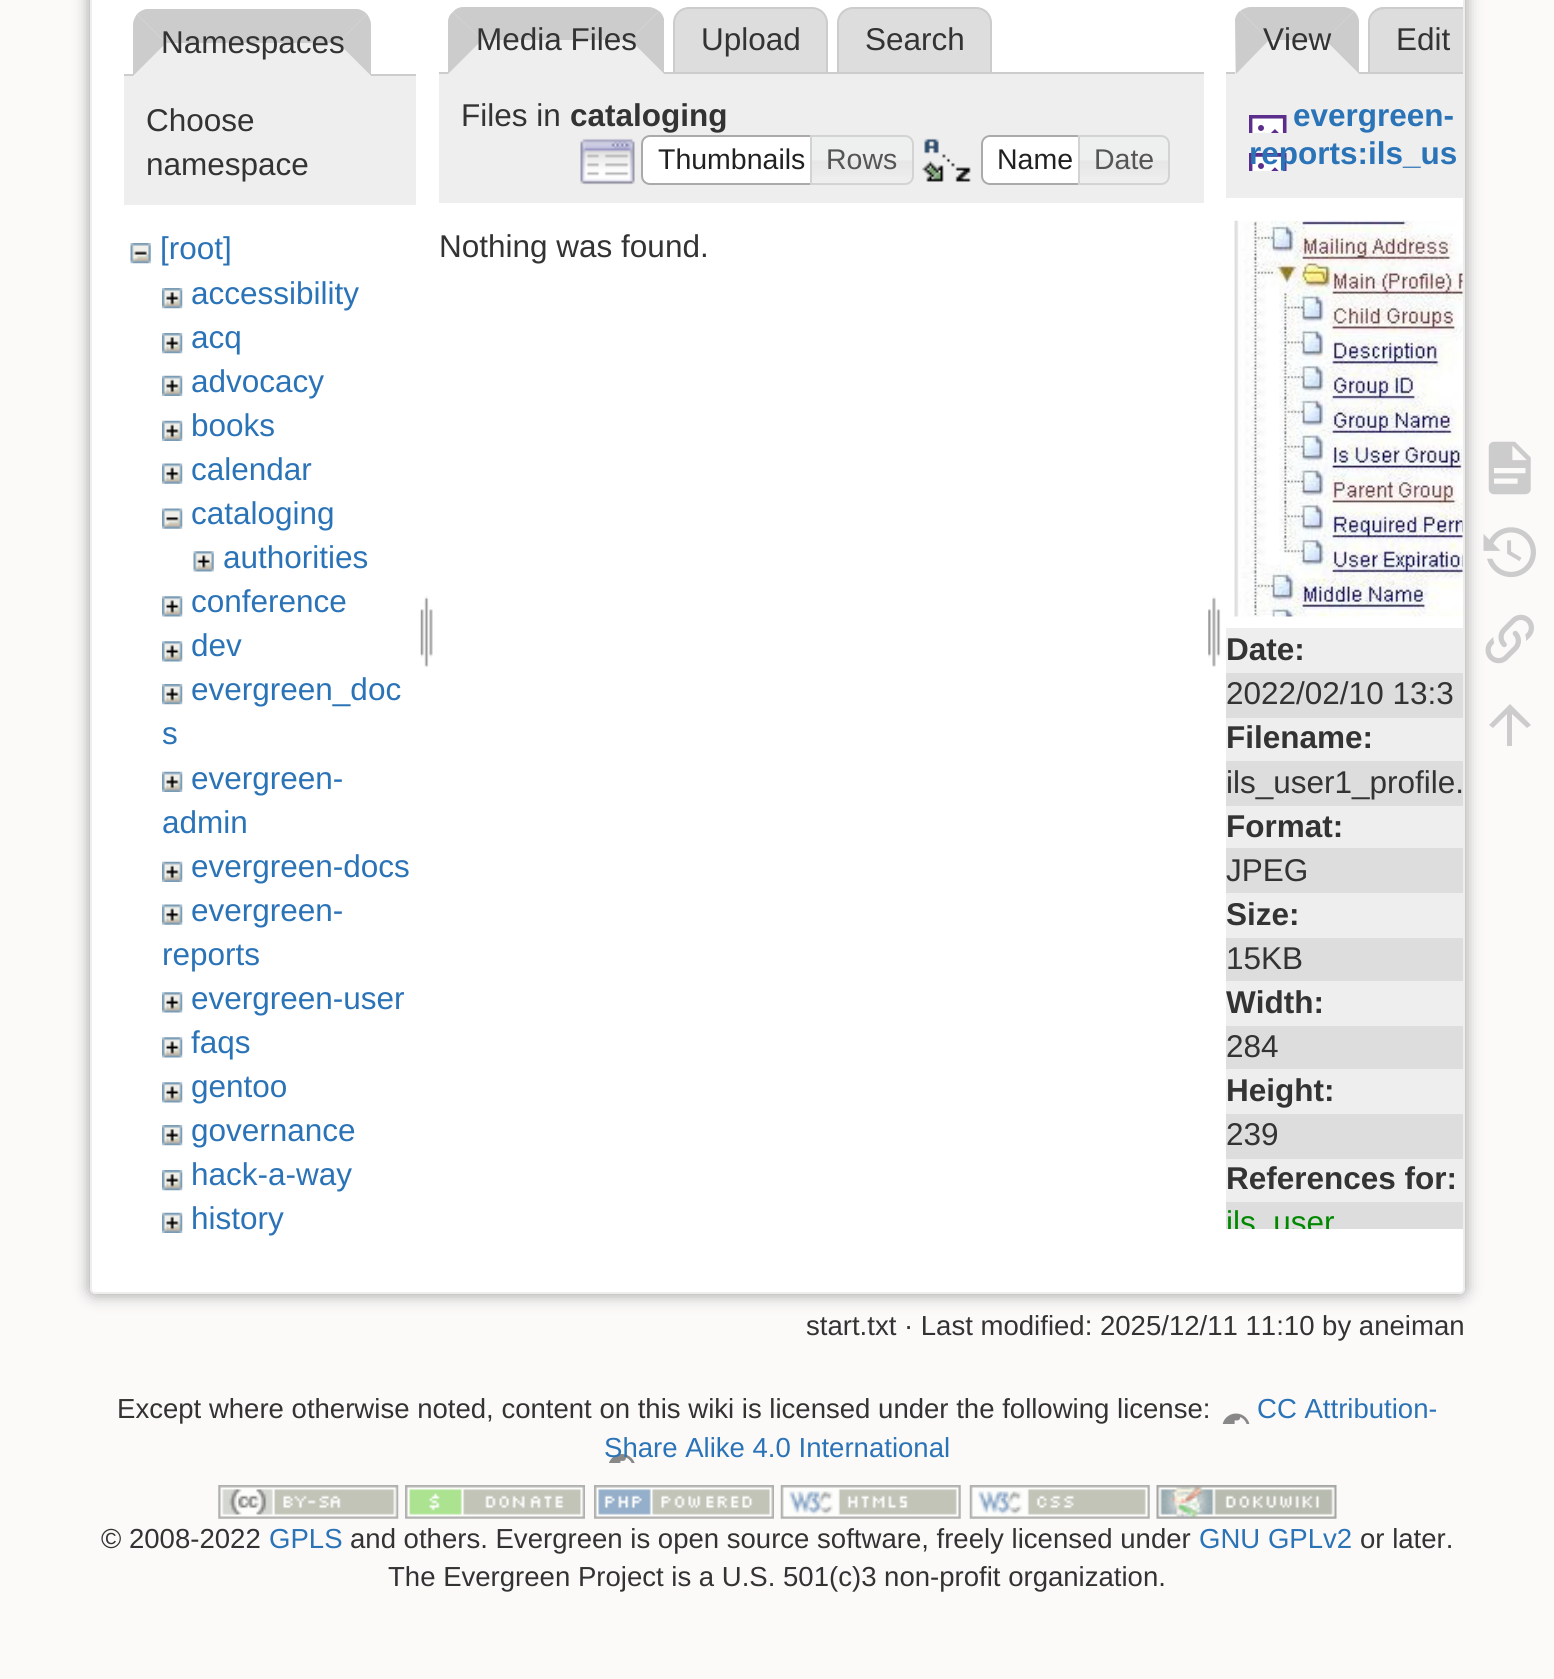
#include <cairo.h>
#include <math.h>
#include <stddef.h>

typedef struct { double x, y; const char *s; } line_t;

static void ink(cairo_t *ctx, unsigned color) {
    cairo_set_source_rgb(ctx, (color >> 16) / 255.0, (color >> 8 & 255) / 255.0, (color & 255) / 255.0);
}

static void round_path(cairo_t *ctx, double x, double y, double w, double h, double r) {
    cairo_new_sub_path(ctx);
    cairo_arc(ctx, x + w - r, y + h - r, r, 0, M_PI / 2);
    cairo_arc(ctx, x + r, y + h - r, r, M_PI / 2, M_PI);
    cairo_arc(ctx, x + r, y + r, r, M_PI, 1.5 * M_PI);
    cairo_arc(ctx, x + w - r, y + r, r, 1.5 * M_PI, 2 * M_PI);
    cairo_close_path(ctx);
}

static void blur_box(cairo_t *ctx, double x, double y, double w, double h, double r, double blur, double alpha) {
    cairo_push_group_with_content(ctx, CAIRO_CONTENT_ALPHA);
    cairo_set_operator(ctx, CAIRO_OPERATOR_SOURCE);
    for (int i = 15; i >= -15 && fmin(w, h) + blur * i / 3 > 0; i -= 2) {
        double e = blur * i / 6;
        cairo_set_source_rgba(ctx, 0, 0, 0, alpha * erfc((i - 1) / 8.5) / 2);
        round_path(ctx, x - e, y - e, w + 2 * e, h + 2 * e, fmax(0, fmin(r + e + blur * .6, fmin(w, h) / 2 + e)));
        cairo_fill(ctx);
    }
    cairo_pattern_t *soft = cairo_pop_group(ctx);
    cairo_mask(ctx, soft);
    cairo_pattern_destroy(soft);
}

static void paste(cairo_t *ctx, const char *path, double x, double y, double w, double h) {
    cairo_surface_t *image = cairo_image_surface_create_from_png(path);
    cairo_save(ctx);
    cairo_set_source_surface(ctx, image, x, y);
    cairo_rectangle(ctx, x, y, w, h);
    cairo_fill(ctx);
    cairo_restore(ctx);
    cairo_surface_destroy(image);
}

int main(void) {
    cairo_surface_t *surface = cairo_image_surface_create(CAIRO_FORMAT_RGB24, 1554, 1679);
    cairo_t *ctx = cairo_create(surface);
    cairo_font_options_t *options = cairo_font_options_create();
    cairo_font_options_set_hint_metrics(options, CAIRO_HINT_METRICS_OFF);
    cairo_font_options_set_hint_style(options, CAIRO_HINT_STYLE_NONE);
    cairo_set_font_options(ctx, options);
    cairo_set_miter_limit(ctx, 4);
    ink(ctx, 0xFBFAF9);
    cairo_paint(ctx);
    ink(ctx, 0x999999);
    blur_box(ctx, 90, -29, 1375, 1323, 5, 8, 1);
    ink(ctx, 0xFFFFFF);
    round_path(ctx, 91, -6, 1373, 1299, 4);
    cairo_fill_preserve(ctx);
    ink(ctx, 0xEEEEEE);
    cairo_stroke(ctx);
    cairo_rectangle(ctx, 124, 76, 292, 129);
    cairo_fill(ctx);
    ink(ctx, 0xCCCCCC);
    cairo_rectangle(ctx, 124, 74, 292, 2);
    cairo_fill(ctx);
    ink(ctx, 0xEEEEEE);
    cairo_new_path(ctx);
    cairo_move_to(ctx, 149, 9);
    cairo_line_to(ctx, 355, 9);
    cairo_curve_to(ctx, 364, 9, 371, 16, 371, 25);
    cairo_line_to(ctx, 371, 77);
    cairo_line_to(ctx, 133, 77);
    cairo_line_to(ctx, 133, 25);
    cairo_curve_to(ctx, 133, 16, 140, 9, 149, 9);
    cairo_close_path(ctx);
    cairo_fill(ctx);
    ink(ctx, 0xCCCCCC);
    cairo_new_path(ctx);
    cairo_move_to(ctx, 148, 9);
    cairo_line_to(ctx, 356, 9);
    cairo_curve_to(ctx, 360, 9, 364, 11, 367, 14);
    cairo_line_to(ctx, 338, 43);
    cairo_line_to(ctx, 166, 43);
    cairo_line_to(ctx, 137, 14);
    cairo_curve_to(ctx, 140, 11, 144, 9, 148, 9);
    cairo_close_path(ctx);
    cairo_fill(ctx);
    cairo_new_path(ctx);
    cairo_move_to(ctx, 367, 14);
    cairo_line_to(ctx, 338, 43);
    cairo_line_to(ctx, 371, 76);
    cairo_line_to(ctx, 371, 25);
    cairo_curve_to(ctx, 371, 21, 369, 17, 367, 14);
    cairo_close_path(ctx);
    cairo_fill(ctx);
    ink(ctx, 0xEEEEEE);
    cairo_new_path(ctx);
    cairo_move_to(ctx, 371, 76);
    cairo_line_to(ctx, 338, 43);
    cairo_line_to(ctx, 166, 43);
    cairo_line_to(ctx, 133, 76);
    cairo_close_path(ctx);
    cairo_fill(ctx);
    ink(ctx, 0xCCCCCC);
    cairo_new_path(ctx);
    cairo_move_to(ctx, 137, 14);
    cairo_curve_to(ctx, 135, 17, 133, 21, 133, 25);
    cairo_line_to(ctx, 133, 76);
    cairo_line_to(ctx, 166, 43);
    cairo_close_path(ctx);
    cairo_fill(ctx);
    cairo_select_font_face(ctx, "Liberation Sans", CAIRO_FONT_SLANT_NORMAL, CAIRO_FONT_WEIGHT_NORMAL);
    cairo_set_font_size(ctx, 31.5);
    ink(ctx, 0x333333);
    {
        static const line_t items[] = {
            {161, 53, "Namespaces"},
            {146, 131, "Choose"},
            {146, 175, "namespace"},
        };
        for (size_t i = 0; i < sizeof items / sizeof *items; i++) {
            cairo_move_to(ctx, items[i].x, items[i].y);
            cairo_show_text(ctx, items[i].s);
        }
    }
    paste(ctx, "media/1.png", 130, 243, 21, 21);
    ink(ctx, 0x2B73B7);
    cairo_move_to(ctx, 160, 259);
    cairo_show_text(ctx, "[root]");
    paste(ctx, "media/2.png", 162, 288, 21, 21);
    cairo_move_to(ctx, 191, 304);
    cairo_show_text(ctx, "accessibility");
    paste(ctx, "media/2.png", 162, 333, 21, 21);
    cairo_move_to(ctx, 191, 348);
    cairo_show_text(ctx, "acq");
    paste(ctx, "media/3.png", 162, 375, 21, 21);
    cairo_move_to(ctx, 191, 392);
    cairo_show_text(ctx, "advocacy");
    paste(ctx, "media/3.png", 162, 420, 21, 21);
    cairo_move_to(ctx, 191, 436);
    cairo_show_text(ctx, "books");
    paste(ctx, "media/4.png", 162, 463, 21, 21);
    cairo_move_to(ctx, 191, 480);
    cairo_show_text(ctx, "calendar");
    paste(ctx, "media/5.png", 162, 508, 21, 21);
    cairo_move_to(ctx, 191, 524);
    cairo_show_text(ctx, "cataloging");
    paste(ctx, "media/6.png", 193, 551, 21, 21);
    cairo_move_to(ctx, 223, 568);
    cairo_show_text(ctx, "authorities");
    paste(ctx, "media/7.png", 162, 596, 21, 21);
    cairo_move_to(ctx, 191, 612);
    cairo_show_text(ctx, "conference");
    paste(ctx, "media/7.png", 162, 641, 21, 21);
    cairo_move_to(ctx, 191, 656);
    cairo_show_text(ctx, "dev");
    paste(ctx, "media/2.png", 162, 684, 21, 21);
    cairo_move_to(ctx, 191, 700);
    cairo_show_text(ctx, "evergreen_doc");
    cairo_move_to(ctx, 162, 744);
    cairo_show_text(ctx, "s");
    paste(ctx, "media/3.png", 162, 771, 21, 21);
    cairo_move_to(ctx, 191, 789);
    cairo_show_text(ctx, "evergreen-");
    cairo_move_to(ctx, 162, 833);
    cairo_show_text(ctx, "admin");
    paste(ctx, "media/3.png", 162, 861, 21, 21);
    cairo_move_to(ctx, 191, 877);
    cairo_show_text(ctx, "evergreen-docs");
    paste(ctx, "media/4.png", 162, 904, 21, 21);
    cairo_move_to(ctx, 191, 921);
    cairo_show_text(ctx, "evergreen-");
    cairo_move_to(ctx, 162, 965);
    cairo_show_text(ctx, "reports");
    paste(ctx, "media/8.png", 162, 992, 21, 21);
    cairo_move_to(ctx, 191, 1009);
    cairo_show_text(ctx, "evergreen-user");
    paste(ctx, "media/7.png", 162, 1037, 21, 21);
    cairo_move_to(ctx, 191, 1053);
    cairo_show_text(ctx, "faqs");
    paste(ctx, "media/7.png", 162, 1082, 21, 21);
    cairo_move_to(ctx, 191, 1097);
    cairo_show_text(ctx, "gentoo");
    paste(ctx, "media/2.png", 162, 1125, 21, 21);
    cairo_move_to(ctx, 191, 1141);
    cairo_show_text(ctx, "governance");
    paste(ctx, "media/2.png", 162, 1170, 21, 21);
    cairo_move_to(ctx, 191, 1185);
    cairo_show_text(ctx, "hack-a-way");
    paste(ctx, "media/3.png", 162, 1212, 21, 21);
    cairo_move_to(ctx, 191, 1229);
    cairo_show_text(ctx, "history");
    paste(ctx, "media/9.png", 420, 596, 13, 71);
    ink(ctx, 0xDDDDDD);
    cairo_new_path(ctx);
    cairo_move_to(ctx, 689, 8);
    cairo_line_to(ctx, 812, 8);
    cairo_curve_to(ctx, 820.5, 8, 827, 14.5, 827, 23);
    cairo_line_to(ctx, 827, 73);
    cairo_line_to(ctx, 674, 73);
    cairo_line_to(ctx, 674, 23);
    cairo_curve_to(ctx, 674, 14.5, 680.5, 8, 689, 8);
    cairo_close_path(ctx);
    cairo_fill_preserve(ctx);
    ink(ctx, 0xCCCCCC);
    cairo_stroke(ctx);
    ink(ctx, 0xDDDDDD);
    cairo_new_path(ctx);
    cairo_move_to(ctx, 853, 8);
    cairo_line_to(ctx, 976, 8);
    cairo_curve_to(ctx, 984.5, 8, 991, 14.5, 991, 23);
    cairo_line_to(ctx, 991, 73);
    cairo_line_to(ctx, 838, 73);
    cairo_line_to(ctx, 838, 23);
    cairo_curve_to(ctx, 838, 14.5, 844.5, 8, 853, 8);
    cairo_close_path(ctx);
    cairo_fill_preserve(ctx);
    ink(ctx, 0xCCCCCC);
    cairo_stroke(ctx);
    cairo_rectangle(ctx, 439, 72, 765, 2);
    cairo_fill(ctx);
    ink(ctx, 0xEEEEEE);
    cairo_new_path(ctx);
    cairo_move_to(ctx, 464, 7);
    cairo_line_to(ctx, 648, 7);
    cairo_curve_to(ctx, 657, 7, 664, 14, 664, 23);
    cairo_line_to(ctx, 664, 74);
    cairo_line_to(ctx, 448, 74);
    cairo_line_to(ctx, 448, 23);
    cairo_curve_to(ctx, 448, 14, 455, 7, 464, 7);
    cairo_close_path(ctx);
    cairo_fill(ctx);
    ink(ctx, 0xCCCCCC);
    cairo_new_path(ctx);
    cairo_move_to(ctx, 464, 7);
    cairo_curve_to(ctx, 459, 7, 455, 9, 453, 12);
    cairo_line_to(ctx, 482, 40);
    cairo_line_to(ctx, 630, 40);
    cairo_line_to(ctx, 659, 11);
    cairo_curve_to(ctx, 656, 9, 652, 7, 648, 7);
    cairo_close_path(ctx);
    cairo_fill(ctx);
    cairo_new_path(ctx);
    cairo_move_to(ctx, 664, 74);
    cairo_line_to(ctx, 630, 40);
    cairo_line_to(ctx, 659, 11);
    cairo_curve_to(ctx, 662, 13, 663, 16, 664, 19);
    cairo_close_path(ctx);
    cairo_fill(ctx);
    ink(ctx, 0xEEEEEE);
    cairo_new_path(ctx);
    cairo_move_to(ctx, 664, 74);
    cairo_line_to(ctx, 630, 40);
    cairo_line_to(ctx, 482, 40);
    cairo_line_to(ctx, 448, 74);
    cairo_close_path(ctx);
    cairo_fill(ctx);
    ink(ctx, 0xCCCCCC);
    cairo_new_path(ctx);
    cairo_move_to(ctx, 453, 12);
    cairo_curve_to(ctx, 450, 14, 448, 18, 448, 22);
    cairo_line_to(ctx, 448, 74);
    cairo_line_to(ctx, 482, 40);
    cairo_close_path(ctx);
    cairo_fill(ctx);
    ink(ctx, 0x333333);
    {
        static const line_t items[] = {
            {476, 50, "Media Files"},
            {701, 50, "Upload"},
            {865, 50, "Search"},
        };
        for (size_t i = 0; i < sizeof items / sizeof *items; i++) {
            cairo_move_to(ctx, items[i].x, items[i].y);
            cairo_show_text(ctx, items[i].s);
        }
    }
    ink(ctx, 0xEEEEEE);
    cairo_rectangle(ctx, 439, 74, 765, 129);
    cairo_fill(ctx);
    ink(ctx, 0x333333);
    cairo_move_to(ctx, 461, 126);
    cairo_show_text(ctx, "Files in");
    cairo_select_font_face(ctx, "Liberation Sans", CAIRO_FONT_SLANT_NORMAL, CAIRO_FONT_WEIGHT_BOLD);
    cairo_move_to(ctx, 570, 126);
    cairo_show_text(ctx, "cataloging");
    paste(ctx, "media/10.png", 580, 138, 55, 47);
    ink(ctx, 0xFFFFFF);
    cairo_new_path(ctx);
    cairo_move_to(ctx, 650, 136);
    cairo_line_to(ctx, 820, 136);
    cairo_line_to(ctx, 820, 184);
    cairo_line_to(ctx, 650, 184);
    cairo_curve_to(ctx, 645.5, 184, 642, 180.5, 642, 176);
    cairo_line_to(ctx, 642, 144);
    cairo_curve_to(ctx, 642, 139.5, 645.5, 136, 650, 136);
    cairo_close_path(ctx);
    cairo_fill_preserve(ctx);
    ink(ctx, 0xAAAAAA);
    cairo_stroke(ctx);
    cairo_select_font_face(ctx, "Liberation Sans", CAIRO_FONT_SLANT_NORMAL, CAIRO_FONT_WEIGHT_NORMAL);
    cairo_set_font_size(ctx, 28.5);
    ink(ctx, 0x212121);
    cairo_move_to(ctx, 658, 169);
    cairo_show_text(ctx, "Thumbnails");
    paste(ctx, "media/11.png", 812, 135, 101, 48);
    cairo_new_path(ctx);
    cairo_move_to(ctx, 811, 136);
    cairo_line_to(ctx, 905, 136);
    cairo_curve_to(ctx, 909.5, 136, 913, 139.5, 913, 144);
    cairo_line_to(ctx, 913, 176);
    cairo_curve_to(ctx, 913, 180.5, 909.5, 184, 905, 184);
    cairo_line_to(ctx, 811, 184);
    cairo_close_path(ctx);
    ink(ctx, 0xD3D3D3);
    cairo_stroke(ctx);
    ink(ctx, 0x555555);
    cairo_move_to(ctx, 826, 169);
    cairo_show_text(ctx, "Rows");
    paste(ctx, "media/12.png", 922, 138, 49, 44);
    ink(ctx, 0xFFFFFF);
    cairo_new_path(ctx);
    cairo_move_to(ctx, 990, 135);
    cairo_line_to(ctx, 1089, 135);
    cairo_line_to(ctx, 1089, 185);
    cairo_line_to(ctx, 990, 185);
    cairo_curve_to(ctx, 985, 185, 981, 181, 981, 176);
    cairo_line_to(ctx, 981, 144);
    cairo_curve_to(ctx, 981, 139, 985, 135, 990, 135);
    cairo_close_path(ctx);
    cairo_fill(ctx);
    ink(ctx, 0xFDFDFD);
    cairo_rectangle(ctx, 981, 141, 1, 1);
    cairo_fill(ctx);
    cairo_new_path(ctx);
    cairo_move_to(ctx, 990, 136);
    cairo_line_to(ctx, 1088, 136);
    cairo_line_to(ctx, 1088, 184);
    cairo_line_to(ctx, 990, 184);
    cairo_curve_to(ctx, 985.5, 184, 982, 180.5, 982, 176);
    cairo_line_to(ctx, 982, 144);
    cairo_curve_to(ctx, 982, 139.5, 985.5, 136, 990, 136);
    cairo_close_path(ctx);
    ink(ctx, 0xAAAAAA);
    cairo_stroke(ctx);
    ink(ctx, 0x212121);
    cairo_move_to(ctx, 997, 169);
    cairo_show_text(ctx, "Name");
    paste(ctx, "media/13.png", 1077, 135, 93, 49);
    cairo_new_path(ctx);
    cairo_move_to(ctx, 1079, 136);
    cairo_line_to(ctx, 1161, 136);
    cairo_curve_to(ctx, 1165.5, 136, 1169, 139.5, 1169, 144);
    cairo_line_to(ctx, 1169, 176);
    cairo_curve_to(ctx, 1169, 180.5, 1165.5, 184, 1161, 184);
    cairo_line_to(ctx, 1079, 184);
    cairo_close_path(ctx);
    ink(ctx, 0xD3D3D3);
    cairo_stroke(ctx);
    ink(ctx, 0x555555);
    cairo_move_to(ctx, 1094, 169);
    cairo_show_text(ctx, "Date");
    cairo_set_font_size(ctx, 31.5);
    ink(ctx, 0x333333);
    cairo_move_to(ctx, 439, 257);
    cairo_show_text(ctx, "Nothing was found.");
    paste(ctx, "media/14.png", 1208, 596, 13, 71);
    ink(ctx, 0xCCCCCC);
    cairo_rectangle(ctx, 1226, 72, 142, 2);
    cairo_fill(ctx);
    ink(ctx, 0xEEEEEE);
    cairo_new_path(ctx);
    cairo_move_to(ctx, 1251, 7);
    cairo_line_to(ctx, 1343, 7);
    cairo_curve_to(ctx, 1352, 7, 1359, 14, 1359, 23);
    cairo_line_to(ctx, 1359, 74);
    cairo_line_to(ctx, 1235, 74);
    cairo_line_to(ctx, 1235, 23);
    cairo_curve_to(ctx, 1235, 14, 1242, 7, 1251, 7);
    cairo_close_path(ctx);
    cairo_fill(ctx);
    ink(ctx, 0xCCCCCC);
    cairo_new_path(ctx);
    cairo_move_to(ctx, 1251, 7);
    cairo_curve_to(ctx, 1247, 7, 1243, 9, 1240, 11);
    cairo_line_to(ctx, 1269, 40);
    cairo_line_to(ctx, 1325, 40);
    cairo_line_to(ctx, 1354, 11);
    cairo_curve_to(ctx, 1351, 9, 1347, 7, 1343, 7);
    cairo_close_path(ctx);
    cairo_fill(ctx);
    cairo_new_path(ctx);
    cairo_move_to(ctx, 1359, 74);
    cairo_line_to(ctx, 1325, 40);
    cairo_line_to(ctx, 1354, 11);
    cairo_curve_to(ctx, 1357, 14, 1359, 18, 1359, 22);
    cairo_close_path(ctx);
    cairo_fill(ctx);
    ink(ctx, 0xEEEEEE);
    cairo_new_path(ctx);
    cairo_move_to(ctx, 1359, 74);
    cairo_line_to(ctx, 1325, 40);
    cairo_line_to(ctx, 1269, 40);
    cairo_line_to(ctx, 1236, 74);
    cairo_close_path(ctx);
    cairo_fill(ctx);
    ink(ctx, 0xCCCCCC);
    cairo_new_path(ctx);
    cairo_move_to(ctx, 1235, 19);
    cairo_curve_to(ctx, 1236, 16, 1237, 13, 1240, 11);
    cairo_line_to(ctx, 1269, 40);
    cairo_line_to(ctx, 1236, 74);
    cairo_close_path(ctx);
    cairo_fill(ctx);
    ink(ctx, 0x333333);
    cairo_move_to(ctx, 1263, 50);
    cairo_show_text(ctx, "View");
    cairo_save(ctx);
    round_path(ctx, 92, -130, 1371, 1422, 2);
    cairo_clip(ctx);
    ink(ctx, 0xDDDDDD);
    cairo_new_path(ctx);
    cairo_move_to(ctx, 1384, 7);
    cairo_line_to(ctx, 1462, 7);
    cairo_curve_to(ctx, 1471, 7, 1478, 14, 1478, 23);
    cairo_line_to(ctx, 1478, 74);
    cairo_line_to(ctx, 1368, 74);
    cairo_line_to(ctx, 1368, 23);
    cairo_curve_to(ctx, 1368, 14, 1375, 7, 1384, 7);
    cairo_close_path(ctx);
    cairo_fill(ctx);
    cairo_restore(ctx);
    ink(ctx, 0xCCCCCC);
    cairo_new_path(ctx);
    cairo_move_to(ctx, 1384, 7);
    cairo_curve_to(ctx, 1375, 7, 1368, 14, 1368, 23);
    cairo_line_to(ctx, 1368, 74);
    cairo_line_to(ctx, 1463, 74);
    cairo_line_to(ctx, 1463, 72);
    cairo_line_to(ctx, 1370, 72);
    cairo_line_to(ctx, 1370, 20);
    cairo_curve_to(ctx, 1373, 7, 1387, 9, 1397, 9);
    cairo_line_to(ctx, 1463, 9);
    cairo_line_to(ctx, 1463, 7);
    cairo_line_to(ctx, 1462, 7);
    cairo_close_path(ctx);
    cairo_fill(ctx);
    ink(ctx, 0x333333);
    cairo_move_to(ctx, 1396, 50);
    cairo_show_text(ctx, "Edit");
    ink(ctx, 0xEEEEEE);
    cairo_rectangle(ctx, 1226, 74, 237, 124);
    cairo_fill(ctx);
    paste(ctx, "media/15.png", 1249, 115, 38, 56);
    cairo_select_font_face(ctx, "Liberation Sans", CAIRO_FONT_SLANT_NORMAL, CAIRO_FONT_WEIGHT_BOLD);
    ink(ctx, 0x2B73B7);
    cairo_move_to(ctx, 1293, 126);
    cairo_show_text(ctx, "evergreen-");
    cairo_move_to(ctx, 1249, 164);
    cairo_show_text(ctx, "reports:ils_us");
    paste(ctx, "media/16.png", 1234, 220, 229, 397);
    ink(ctx, 0xEEEEEE);
    cairo_rectangle(ctx, 1226, 628, 237, 45);
    cairo_fill(ctx);
    ink(ctx, 0x333333);
    cairo_move_to(ctx, 1226, 660);
    cairo_show_text(ctx, "Date:");
    ink(ctx, 0xDDDDDD);
    cairo_rectangle(ctx, 1226, 673, 237, 45);
    cairo_fill(ctx);
    cairo_select_font_face(ctx, "Liberation Sans", CAIRO_FONT_SLANT_NORMAL, CAIRO_FONT_WEIGHT_NORMAL);
    ink(ctx, 0x333333);
    cairo_move_to(ctx, 1226, 704);
    cairo_show_text(ctx, "2022/02/10 13:3");
    ink(ctx, 0xEEEEEE);
    cairo_rectangle(ctx, 1226, 718, 237, 43);
    cairo_fill(ctx);
    cairo_select_font_face(ctx, "Liberation Sans", CAIRO_FONT_SLANT_NORMAL, CAIRO_FONT_WEIGHT_BOLD);
    ink(ctx, 0x333333);
    cairo_move_to(ctx, 1226, 748);
    cairo_show_text(ctx, "Filename:");
    ink(ctx, 0xDDDDDD);
    cairo_rectangle(ctx, 1226, 761, 237, 45);
    cairo_fill(ctx);
    cairo_select_font_face(ctx, "Liberation Sans", CAIRO_FONT_SLANT_NORMAL, CAIRO_FONT_WEIGHT_NORMAL);
    ink(ctx, 0x333333);
    cairo_move_to(ctx, 1226, 793);
    cairo_show_text(ctx, "ils_user1_profile.");
    ink(ctx, 0xEEEEEE);
    cairo_rectangle(ctx, 1226, 806, 237, 42);
    cairo_fill(ctx);
    cairo_select_font_face(ctx, "Liberation Sans", CAIRO_FONT_SLANT_NORMAL, CAIRO_FONT_WEIGHT_BOLD);
    ink(ctx, 0x333333);
    cairo_move_to(ctx, 1226, 837);
    cairo_show_text(ctx, "Format:");
    ink(ctx, 0xDDDDDD);
    cairo_rectangle(ctx, 1226, 848, 237, 45);
    cairo_fill(ctx);
    cairo_select_font_face(ctx, "Liberation Sans", CAIRO_FONT_SLANT_NORMAL, CAIRO_FONT_WEIGHT_NORMAL);
    ink(ctx, 0x333333);
    cairo_move_to(ctx, 1226, 881);
    cairo_show_text(ctx, "JPEG");
    ink(ctx, 0xEEEEEE);
    cairo_rectangle(ctx, 1226, 893, 237, 45);
    cairo_fill(ctx);
    cairo_select_font_face(ctx, "Liberation Sans", CAIRO_FONT_SLANT_NORMAL, CAIRO_FONT_WEIGHT_BOLD);
    ink(ctx, 0x333333);
    cairo_move_to(ctx, 1226, 925);
    cairo_show_text(ctx, "Size:");
    ink(ctx, 0xDDDDDD);
    cairo_rectangle(ctx, 1226, 938, 237, 43);
    cairo_fill(ctx);
    cairo_select_font_face(ctx, "Liberation Sans", CAIRO_FONT_SLANT_NORMAL, CAIRO_FONT_WEIGHT_NORMAL);
    ink(ctx, 0x333333);
    cairo_move_to(ctx, 1226, 969);
    cairo_show_text(ctx, "15KB");
    ink(ctx, 0xEEEEEE);
    cairo_rectangle(ctx, 1226, 981, 237, 45);
    cairo_fill(ctx);
    cairo_select_font_face(ctx, "Liberation Sans", CAIRO_FONT_SLANT_NORMAL, CAIRO_FONT_WEIGHT_BOLD);
    ink(ctx, 0x333333);
    cairo_move_to(ctx, 1226, 1013);
    cairo_show_text(ctx, "Width:");
    ink(ctx, 0xDDDDDD);
    cairo_rectangle(ctx, 1226, 1026, 237, 43);
    cairo_fill(ctx);
    cairo_select_font_face(ctx, "Liberation Sans", CAIRO_FONT_SLANT_NORMAL, CAIRO_FONT_WEIGHT_NORMAL);
    ink(ctx, 0x333333);
    cairo_move_to(ctx, 1226, 1057);
    cairo_show_text(ctx, "284");
    ink(ctx, 0xEEEEEE);
    cairo_rectangle(ctx, 1226, 1069, 237, 45);
    cairo_fill(ctx);
    cairo_select_font_face(ctx, "Liberation Sans", CAIRO_FONT_SLANT_NORMAL, CAIRO_FONT_WEIGHT_BOLD);
    ink(ctx, 0x333333);
    cairo_move_to(ctx, 1226, 1101);
    cairo_show_text(ctx, "Height:");
    ink(ctx, 0xDDDDDD);
    cairo_rectangle(ctx, 1226, 1114, 237, 45);
    cairo_fill(ctx);
    cairo_select_font_face(ctx, "Liberation Sans", CAIRO_FONT_SLANT_NORMAL, CAIRO_FONT_WEIGHT_NORMAL);
    ink(ctx, 0x333333);
    cairo_move_to(ctx, 1226, 1145);
    cairo_show_text(ctx, "239");
    ink(ctx, 0xEEEEEE);
    cairo_rectangle(ctx, 1226, 1159, 237, 43);
    cairo_fill(ctx);
    cairo_select_font_face(ctx, "Liberation Sans", CAIRO_FONT_SLANT_NORMAL, CAIRO_FONT_WEIGHT_BOLD);
    ink(ctx, 0x333333);
    cairo_move_to(ctx, 1226, 1189);
    cairo_show_text(ctx, "References for:");
    ink(ctx, 0xDDDDDD);
    cairo_rectangle(ctx, 1226, 1202, 237, 27);
    cairo_fill(ctx);
    cairo_save(ctx);
    cairo_rectangle(ctx, 1226, 221, 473, 1008);
    cairo_clip(ctx);
    cairo_select_font_face(ctx, "Liberation Sans", CAIRO_FONT_SLANT_NORMAL, CAIRO_FONT_WEIGHT_NORMAL);
    ink(ctx, 0x008800);
    cairo_move_to(ctx, 1226, 1233);
    cairo_show_text(ctx, "ils_user");
    cairo_restore(ctx);
    cairo_select_font_face(ctx, "Liberation Sans", CAIRO_FONT_SLANT_NORMAL, CAIRO_FONT_WEIGHT_NORMAL);
    cairo_set_font_size(ctx, 27.55);
    ink(ctx, 0x333333);
    cairo_move_to(ctx, 806, 1335);
    cairo_show_text(ctx, "start.txt · Last modified: 2025/12/11 11:10 by aneiman");
    paste(ctx, "media/17.png", 1488, 441, 43, 54);
    paste(ctx, "media/18.png", 1483, 527, 53, 51);
    paste(ctx, "media/19.png", 1485, 614, 49, 50);
    ink(ctx, 0xCCCCCC);
    cairo_new_path(ctx);
    cairo_move_to(ctx, 1512, 746);
    cairo_line_to(ctx, 1507, 746);
    cairo_line_to(ctx, 1507, 714);
    cairo_line_to(ctx, 1493, 728);
    cairo_line_to(ctx, 1489, 725);
    cairo_line_to(ctx, 1510, 704);
    cairo_line_to(ctx, 1531, 725);
    cairo_line_to(ctx, 1527, 728);
    cairo_line_to(ctx, 1512, 714);
    cairo_close_path(ctx);
    cairo_fill(ctx);
    ink(ctx, 0x333333);
    cairo_move_to(ctx, 117, 1418);
    cairo_show_text(ctx, "Except where otherwise noted, content on this wiki is licensed under the following license:");
    ink(ctx, 0x2B73B7);
    cairo_move_to(ctx, 1257, 1418);
    cairo_show_text(ctx, "CC Attribution-");
    paste(ctx, "media/20.png", 609, 1413, 641, 50);
    cairo_move_to(ctx, 604, 1457);
    cairo_show_text(ctx, "Share Alike 4.0 International");
    paste(ctx, "media/21.png", 218, 1485, 181, 34);
    paste(ctx, "media/22.png", 405, 1485, 180, 34);
    paste(ctx, "media/23.png", 594, 1485, 180, 34);
    paste(ctx, "media/24.png", 780, 1485, 181, 34);
    paste(ctx, "media/25.png", 969, 1485, 181, 34);
    paste(ctx, "media/26.png", 1156, 1485, 181, 34);
    ink(ctx, 0x333333);
    cairo_move_to(ctx, 101, 1548);
    cairo_show_text(ctx, "© 2008-2022");
    ink(ctx, 0x2B73B7);
    cairo_move_to(ctx, 269, 1548);
    cairo_show_text(ctx, "GPLS");
    ink(ctx, 0x333333);
    cairo_move_to(ctx, 350, 1548);
    cairo_show_text(ctx, "and others. Evergreen is open source software, freely licensed under");
    ink(ctx, 0x2B73B7);
    cairo_move_to(ctx, 1199, 1548);
    cairo_show_text(ctx, "GNU GPLv2");
    ink(ctx, 0x333333);
    cairo_move_to(ctx, 1360, 1548);
    cairo_show_text(ctx, "or later.");
    cairo_move_to(ctx, 388, 1586);
    cairo_show_text(ctx, "The Evergreen Project is a U.S. 501(c)3 non-profit organization.");
    cairo_surface_write_to_png(surface, "image.png");
    cairo_font_options_destroy(options);
    cairo_destroy(ctx);
    cairo_surface_destroy(surface);
    return 0;
}
